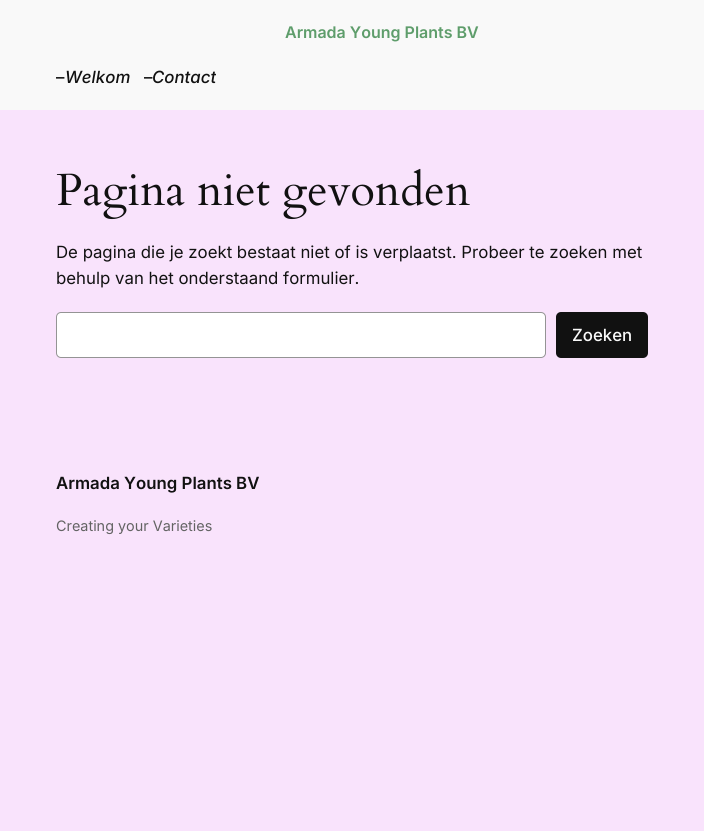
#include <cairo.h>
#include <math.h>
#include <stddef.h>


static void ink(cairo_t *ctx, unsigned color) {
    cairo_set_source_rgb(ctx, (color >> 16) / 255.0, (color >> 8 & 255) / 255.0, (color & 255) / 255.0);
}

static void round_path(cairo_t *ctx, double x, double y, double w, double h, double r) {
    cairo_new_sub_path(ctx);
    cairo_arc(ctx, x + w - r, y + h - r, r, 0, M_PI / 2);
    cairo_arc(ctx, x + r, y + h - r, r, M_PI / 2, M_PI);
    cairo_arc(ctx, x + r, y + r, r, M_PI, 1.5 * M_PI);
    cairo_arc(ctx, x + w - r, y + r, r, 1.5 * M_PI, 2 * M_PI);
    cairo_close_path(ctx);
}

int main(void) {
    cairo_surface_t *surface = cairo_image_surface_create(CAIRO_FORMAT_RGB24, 704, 831);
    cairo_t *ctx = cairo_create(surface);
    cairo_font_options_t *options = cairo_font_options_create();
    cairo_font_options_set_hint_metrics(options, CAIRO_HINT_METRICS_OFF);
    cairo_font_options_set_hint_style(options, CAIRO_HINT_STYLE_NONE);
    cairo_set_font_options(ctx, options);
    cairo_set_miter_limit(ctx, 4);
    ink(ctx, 0xF9E3FC);
    cairo_paint(ctx);
    ink(ctx, 0xF9F9F9);
    cairo_rectangle(ctx, 0, 0, 704, 110);
    cairo_fill(ctx);
    cairo_select_font_face(ctx, "Inter SemiBold", CAIRO_FONT_SLANT_NORMAL, CAIRO_FONT_WEIGHT_NORMAL);
    cairo_set_font_size(ctx, 16);
    ink(ctx, 0x5E9D6B);
    cairo_move_to(ctx, 285, 38);
    cairo_show_text(ctx, "Armada Young Plants BV");
    cairo_select_font_face(ctx, "Inter Medium", CAIRO_FONT_SLANT_NORMAL, CAIRO_FONT_WEIGHT_NORMAL);
    cairo_set_font_size(ctx, 16.8);
    ink(ctx, 0x111111);
    cairo_move_to(ctx, 56, 83);
    cairo_show_text(ctx, "–");
    cairo_select_font_face(ctx, "Inter Medium", CAIRO_FONT_SLANT_ITALIC, CAIRO_FONT_WEIGHT_NORMAL);
    cairo_move_to(ctx, 65, 83);
    cairo_show_text(ctx, "Welkom");
    cairo_select_font_face(ctx, "Inter Medium", CAIRO_FONT_SLANT_NORMAL, CAIRO_FONT_WEIGHT_NORMAL);
    cairo_move_to(ctx, 144, 83);
    cairo_show_text(ctx, "–");
    cairo_select_font_face(ctx, "Inter Medium", CAIRO_FONT_SLANT_ITALIC, CAIRO_FONT_WEIGHT_NORMAL);
    cairo_move_to(ctx, 152, 83);
    cairo_show_text(ctx, "Contact");
    cairo_select_font_face(ctx, "Cardo", CAIRO_FONT_SLANT_NORMAL, CAIRO_FONT_WEIGHT_NORMAL);
    cairo_set_font_size(ctx, 45);
    cairo_move_to(ctx, 56, 205);
    cairo_show_text(ctx, "Pagina niet gevonden");
    cairo_select_font_face(ctx, "Inter", CAIRO_FONT_SLANT_NORMAL, CAIRO_FONT_WEIGHT_NORMAL);
    cairo_set_font_size(ctx, 16.8);
    cairo_move_to(ctx, 56, 258);
    cairo_show_text(ctx, "De pagina die je zoekt bestaat niet of is verplaatst. Probeer te zoeken met");
    cairo_move_to(ctx, 56, 284);
    cairo_show_text(ctx, "behulp van het onderstaand formulier.");
    ink(ctx, 0xFFFFFF);
    round_path(ctx, 56.5, 312.5, 489, 45, 4.5);
    cairo_fill_preserve(ctx);
    ink(ctx, 0x949494);
    cairo_set_line_width(ctx, 1);
    cairo_stroke(ctx);
    ink(ctx, 0x111111);
    round_path(ctx, 556, 312, 92, 46, 5);
    cairo_fill(ctx);
    cairo_select_font_face(ctx, "Inter Medium", CAIRO_FONT_SLANT_NORMAL, CAIRO_FONT_WEIGHT_NORMAL);
    ink(ctx, 0xF9F9F9);
    cairo_move_to(ctx, 572, 341);
    cairo_show_text(ctx, "Zoeken");
    cairo_select_font_face(ctx, "Inter SemiBold", CAIRO_FONT_SLANT_NORMAL, CAIRO_FONT_WEIGHT_NORMAL);
    ink(ctx, 0x111111);
    cairo_move_to(ctx, 56, 489);
    cairo_show_text(ctx, "Armada Young Plants BV");
    cairo_select_font_face(ctx, "Inter", CAIRO_FONT_SLANT_NORMAL, CAIRO_FONT_WEIGHT_NORMAL);
    cairo_set_font_size(ctx, 14.4);
    ink(ctx, 0x636363);
    cairo_move_to(ctx, 56, 531);
    cairo_show_text(ctx, "Creating your Varieties");
    cairo_surface_write_to_png(surface, "image.png");
    cairo_font_options_destroy(options);
    cairo_destroy(ctx);
    cairo_surface_destroy(surface);
    return 0;
}
